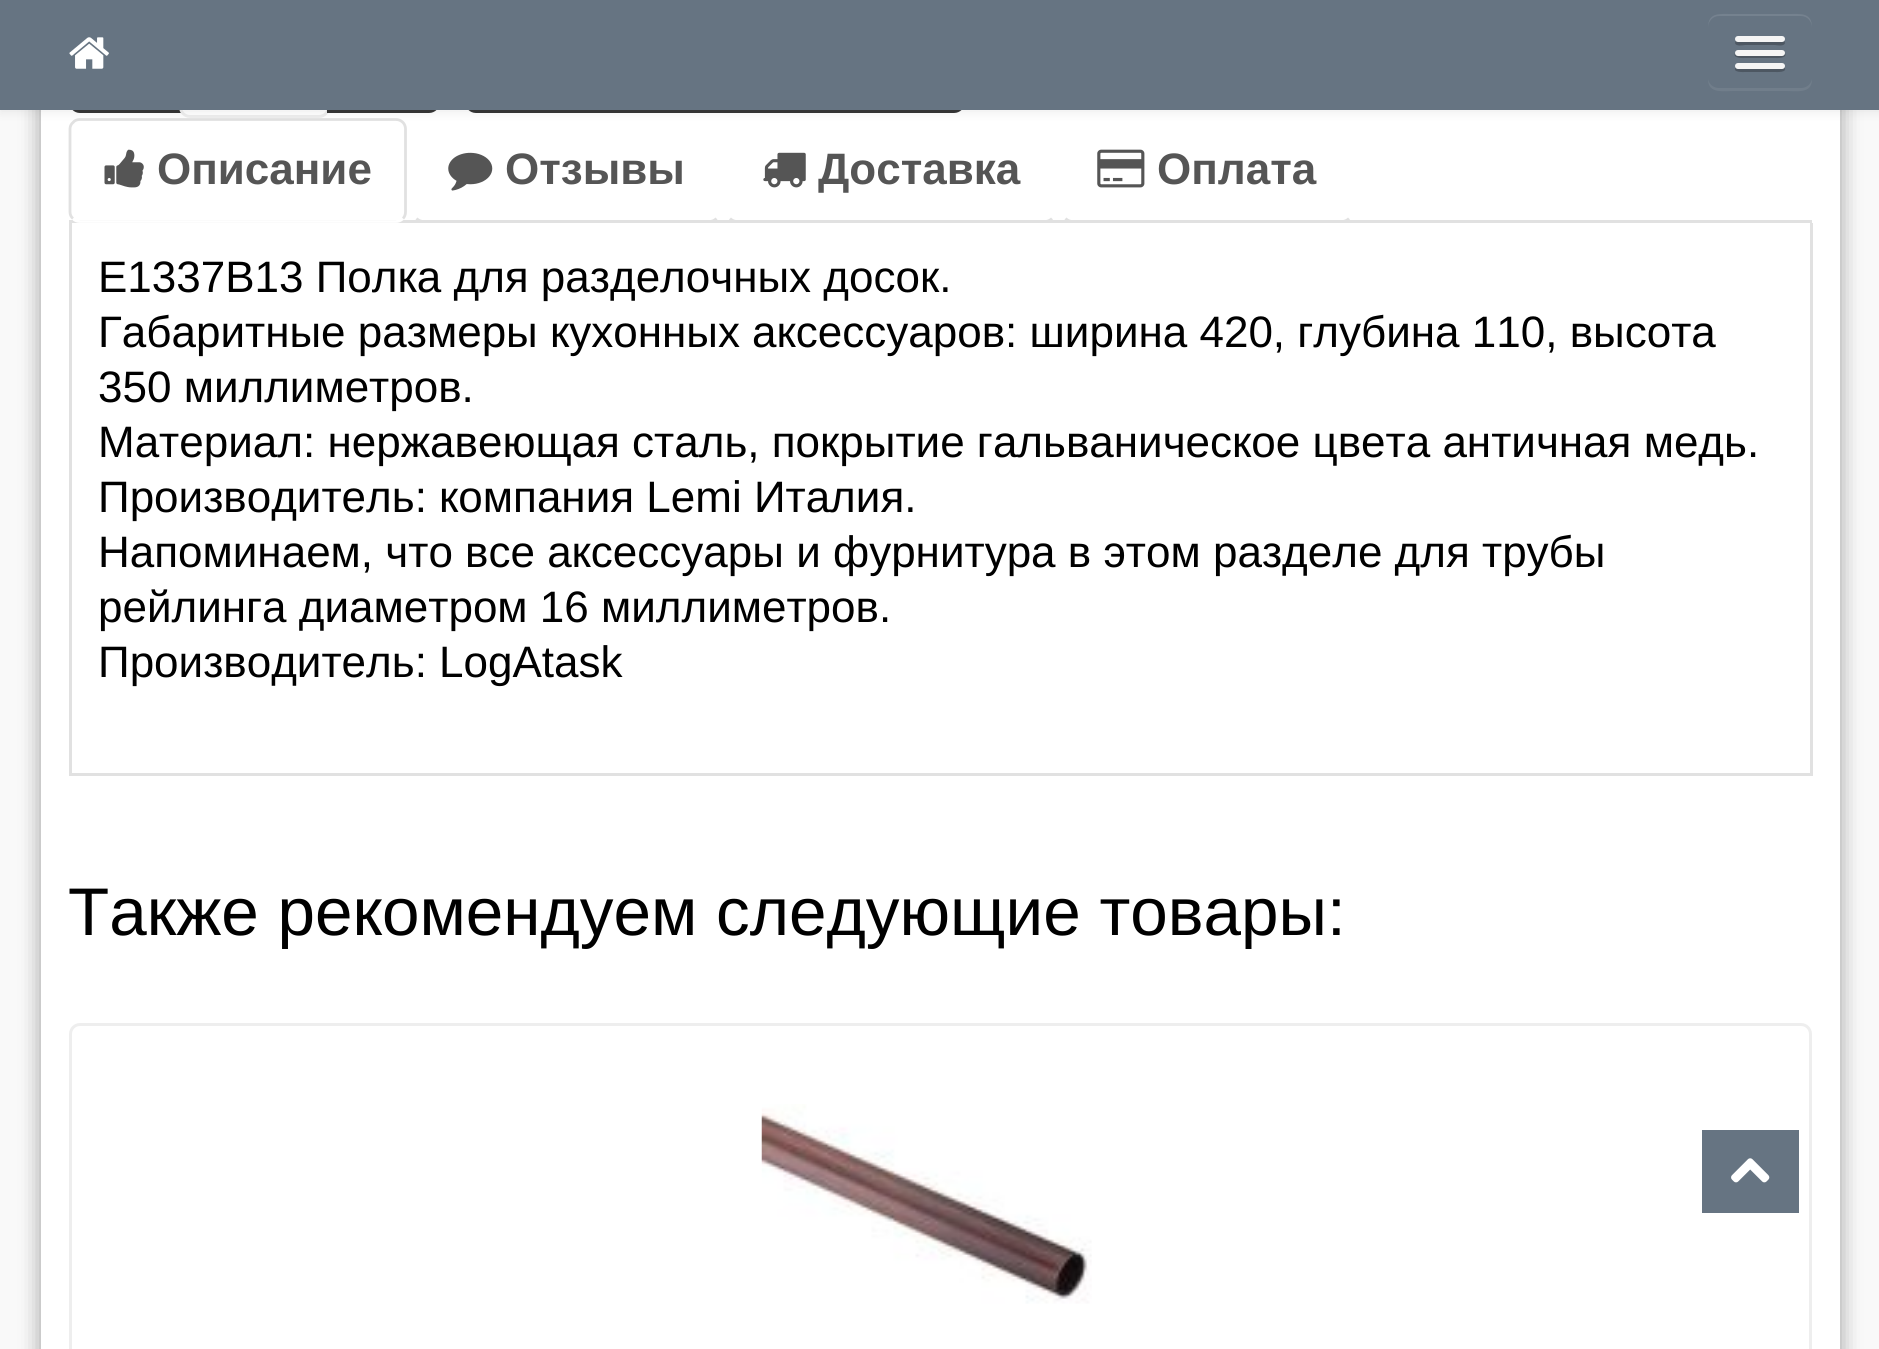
#include <cairo.h>
#include <math.h>
#include <stddef.h>

typedef struct { double x, y; const char *s; } line_t;
typedef struct { double x, y, w, h; unsigned color; } box_t;

static void ink(cairo_t *ctx, unsigned color) {
    cairo_set_source_rgb(ctx, (color >> 16) / 255.0, (color >> 8 & 255) / 255.0, (color & 255) / 255.0);
}

static void round_path(cairo_t *ctx, double x, double y, double w, double h, double r) {
    cairo_new_sub_path(ctx);
    cairo_arc(ctx, x + w - r, y + h - r, r, 0, M_PI / 2);
    cairo_arc(ctx, x + r, y + h - r, r, M_PI / 2, M_PI);
    cairo_arc(ctx, x + r, y + r, r, M_PI, 1.5 * M_PI);
    cairo_arc(ctx, x + w - r, y + r, r, 1.5 * M_PI, 2 * M_PI);
    cairo_close_path(ctx);
}

static void blur_box(cairo_t *ctx, double x, double y, double w, double h, double r, double blur, double alpha) {
    cairo_push_group_with_content(ctx, CAIRO_CONTENT_ALPHA);
    cairo_set_operator(ctx, CAIRO_OPERATOR_SOURCE);
    for (int i = 15; i >= -15 && fmin(w, h) + blur * i / 3 > 0; i -= 2) {
        double e = blur * i / 6;
        cairo_set_source_rgba(ctx, 0, 0, 0, alpha * erfc((i - 1) / 8.5) / 2);
        round_path(ctx, x - e, y - e, w + 2 * e, h + 2 * e, fmax(0, fmin(r + e + blur * .6, fmin(w, h) / 2 + e)));
        cairo_fill(ctx);
    }
    cairo_pattern_t *soft = cairo_pop_group(ctx);
    cairo_mask(ctx, soft);
    cairo_pattern_destroy(soft);
}

static void paste(cairo_t *ctx, const char *path, double x, double y, double w, double h) {
    cairo_surface_t *image = cairo_image_surface_create_from_png(path);
    cairo_save(ctx);
    cairo_set_source_surface(ctx, image, x, y);
    cairo_rectangle(ctx, x, y, w, h);
    cairo_fill(ctx);
    cairo_restore(ctx);
    cairo_surface_destroy(image);
}

int main(void) {
    cairo_surface_t *surface = cairo_image_surface_create(CAIRO_FORMAT_RGB24, 1879, 1349);
    cairo_t *ctx = cairo_create(surface);
    cairo_font_options_t *options = cairo_font_options_create();
    cairo_font_options_set_hint_metrics(options, CAIRO_HINT_METRICS_OFF);
    cairo_font_options_set_hint_style(options, CAIRO_HINT_STYLE_NONE);
    cairo_set_font_options(ctx, options);
    cairo_set_miter_limit(ctx, 4);
    ink(ctx, 0xF9F9F9);
    cairo_paint(ctx);
    ink(ctx, 0x000000);
    blur_box(ctx, 41, -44, 1799, 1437, 11, 11, 0.16);
    blur_box(ctx, 41, -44, 1799, 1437, 11, 11, 0.23);
    ink(ctx, 0xFFFFFF);
    cairo_rectangle(ctx, 41, 110, 1799, 1239);
    cairo_fill(ctx);
    ink(ctx, 0x363636);
    cairo_new_path(ctx);
    cairo_move_to(ctx, 80, 3);
    cairo_line_to(ctx, 182, 3);
    cairo_line_to(ctx, 182, 113);
    cairo_line_to(ctx, 80, 113);
    cairo_curve_to(ctx, 74, 113, 69, 108, 69, 102);
    cairo_line_to(ctx, 69, 14);
    cairo_curve_to(ctx, 69, 8, 74, 3, 80, 3);
    cairo_close_path(ctx);
    cairo_fill(ctx);
    ink(ctx, 0xFFFFFF);
    round_path(ctx, 180.5, -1.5, 148, 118, 9.5);
    cairo_fill_preserve(ctx);
    ink(ctx, 0xEEEEEE);
    cairo_set_line_width(ctx, 3);
    cairo_stroke(ctx);
    ink(ctx, 0x363636);
    cairo_new_path(ctx);
    cairo_move_to(ctx, 327, 3);
    cairo_line_to(ctx, 429, 3);
    cairo_curve_to(ctx, 435, 3, 440, 8, 440, 14);
    cairo_line_to(ctx, 440, 102);
    cairo_curve_to(ctx, 440, 108, 435, 113, 429, 113);
    cairo_line_to(ctx, 327, 113);
    cairo_close_path(ctx);
    cairo_fill(ctx);
    round_path(ctx, 465, 3, 500, 110, 11);
    cairo_fill(ctx);
    ink(ctx, 0xE1E1E1);
    cairo_rectangle(ctx, 69, 220, 1743, 3);
    cairo_fill(ctx);
    cairo_new_path(ctx);
    cairo_move_to(ctx, 403, 218.5);
    cairo_curve_to(ctx, 401, 220.5, 398.5, 221.5, 396, 221.5);
    cairo_line_to(ctx, 80, 221.5);
    cairo_curve_to(ctx, 77, 221.5, 74.5, 220.5, 73, 218.5);
    ink(ctx, 0xFFFFFF);
    cairo_set_line_width(ctx, 2.8);
    cairo_stroke(ctx);
    cairo_new_path(ctx);
    cairo_move_to(ctx, 73, 218.5);
    cairo_curve_to(ctx, 71, 217, 70, 214.5, 70, 212);
    cairo_line_to(ctx, 70, 129);
    cairo_curve_to(ctx, 70, 126.5, 71, 124, 73, 122.5);
    cairo_curve_to(ctx, 74.5, 120.5, 77, 119.5, 80, 119.5);
    cairo_line_to(ctx, 396, 119.5);
    cairo_curve_to(ctx, 398.5, 119.5, 401, 120.5, 403, 122.5);
    cairo_curve_to(ctx, 404.5, 124, 405.5, 126.5, 405.5, 129);
    cairo_line_to(ctx, 405.5, 212);
    cairo_curve_to(ctx, 405.5, 214.5, 404.5, 217, 403, 218.5);
    ink(ctx, 0xE1E1E1);
    cairo_stroke(ctx);
    ink(ctx, 0x000000);
    blur_box(ctx, 0, 3, 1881, 110, 0, 5.5, 0.07);
    ink(ctx, 0x667482);
    cairo_rectangle(ctx, 0, 0, 1879, 110);
    cairo_fill(ctx);
    paste(ctx, "media/1.png", 69, 37, 40, 32);
    ink(ctx, 0x717E8B);
    cairo_new_path(ctx);
    cairo_move_to(ctx, 1708, 79);
    cairo_curve_to(ctx, 1708, 94, 1723, 91, 1733, 91);
    cairo_line_to(ctx, 1787, 91);
    cairo_curve_to(ctx, 1797, 91, 1812, 94, 1812, 79);
    cairo_curve_to(ctx, 1811, 84, 1807, 88, 1801, 88);
    cairo_line_to(ctx, 1719, 88);
    cairo_curve_to(ctx, 1713, 88, 1709, 84, 1708, 79);
    cairo_close_path(ctx);
    cairo_fill(ctx);
    ink(ctx, 0x75828F);
    cairo_new_path(ctx);
    cairo_move_to(ctx, 1719, 16);
    cairo_line_to(ctx, 1801, 16);
    cairo_curve_to(ctx, 1807, 16, 1812, 21, 1812, 28);
    cairo_curve_to(ctx, 1812, 12, 1801, 14, 1787, 14);
    cairo_line_to(ctx, 1733, 14);
    cairo_curve_to(ctx, 1719, 14, 1708, 12, 1708, 28);
    cairo_curve_to(ctx, 1708, 21, 1713, 16, 1719, 16);
    cairo_close_path(ctx);
    cairo_fill(ctx);
    ink(ctx, 0x4D5762);
    cairo_new_path(ctx);
    cairo_move_to(ctx, 1736, 40);
    cairo_line_to(ctx, 1735, 43);
    cairo_curve_to(ctx, 1736, 47, 1744, 45, 1745, 45);
    cairo_line_to(ctx, 1775, 45);
    cairo_curve_to(ctx, 1776, 45, 1784, 47, 1785, 43);
    cairo_line_to(ctx, 1784, 40);
    cairo_line_to(ctx, 1782, 41);
    cairo_line_to(ctx, 1738, 41);
    cairo_close_path(ctx);
    cairo_fill(ctx);
    ink(ctx, 0xF5F5F5);
    round_path(ctx, 1735, 36, 50, 6, 3);
    cairo_fill(ctx);
    ink(ctx, 0x4D5762);
    cairo_new_path(ctx);
    cairo_move_to(ctx, 1735, 53);
    cairo_curve_to(ctx, 1732, 59, 1745, 58, 1745, 58);
    cairo_line_to(ctx, 1775, 58);
    cairo_curve_to(ctx, 1775, 58, 1788, 59, 1785, 53);
    cairo_curve_to(ctx, 1784, 54, 1783, 55, 1782, 55);
    cairo_line_to(ctx, 1738, 55);
    cairo_curve_to(ctx, 1737, 55, 1736, 54, 1735, 53);
    cairo_close_path(ctx);
    cairo_fill(ctx);
    ink(ctx, 0xF5F5F5);
    round_path(ctx, 1735, 50, 50, 6, 3);
    cairo_fill(ctx);
    ink(ctx, 0x4D5762);
    cairo_new_path(ctx);
    cairo_move_to(ctx, 1736, 67);
    cairo_curve_to(ctx, 1731, 73, 1745, 72, 1745, 72);
    cairo_line_to(ctx, 1775, 72);
    cairo_curve_to(ctx, 1775, 72, 1789, 73, 1784, 67);
    cairo_curve_to(ctx, 1784, 68, 1783, 69, 1782, 69);
    cairo_line_to(ctx, 1738, 69);
    cairo_curve_to(ctx, 1737, 69, 1736, 68, 1736, 67);
    cairo_close_path(ctx);
    cairo_fill(ctx);
    ink(ctx, 0xF5F5F5);
    round_path(ctx, 1735, 63, 50, 6, 3);
    cairo_fill(ctx);
    paste(ctx, "media/2.png", 104, 149, 40, 39);
    cairo_select_font_face(ctx, "Liberation Sans", CAIRO_FONT_SLANT_NORMAL, CAIRO_FONT_WEIGHT_BOLD);
    cairo_set_font_size(ctx, 44);
    ink(ctx, 0x555555);
    cairo_move_to(ctx, 157, 184);
    cairo_show_text(ctx, "Описание");
    cairo_new_path(ctx);
    cairo_move_to(ctx, 716.5, 218.5);
    cairo_curve_to(ctx, 714.5, 220.5, 712, 221.5, 709.5, 221.5);
    cairo_line_to(ctx, 423.5, 221.5);
    cairo_curve_to(ctx, 421, 221.5, 418.5, 220.5, 416.5, 218.5);
    ink(ctx, 0xE1E1E1);
    cairo_stroke(ctx);
    paste(ctx, "media/3.png", 448, 152, 45, 39);
    ink(ctx, 0x555555);
    cairo_move_to(ctx, 505, 184);
    cairo_show_text(ctx, "Отзывы");
    cairo_new_path(ctx);
    cairo_move_to(ctx, 1052, 218.5);
    cairo_curve_to(ctx, 1050, 220.5, 1047.5, 221.5, 1045, 221.5);
    cairo_line_to(ctx, 737, 221.5);
    cairo_curve_to(ctx, 734.5, 221.5, 732, 220.5, 730, 218.5);
    ink(ctx, 0xE1E1E1);
    cairo_stroke(ctx);
    paste(ctx, "media/4.png", 763, 152, 43, 36);
    ink(ctx, 0x555555);
    cairo_move_to(ctx, 818, 184);
    cairo_show_text(ctx, "Доставка");
    cairo_new_path(ctx);
    cairo_move_to(ctx, 1349, 218.5);
    cairo_curve_to(ctx, 1347, 220.5, 1344.5, 221.5, 1342, 221.5);
    cairo_line_to(ctx, 1072.5, 221.5);
    cairo_curve_to(ctx, 1070, 221.5, 1067.5, 220.5, 1065.5, 218.5);
    ink(ctx, 0xE1E1E1);
    cairo_stroke(ctx);
    paste(ctx, "media/5.png", 1097, 149, 48, 39);
    ink(ctx, 0x555555);
    cairo_move_to(ctx, 1157, 184);
    cairo_show_text(ctx, "Оплата");
    {
        static const box_t items[] = {
            {1810, 223, 3, 553, 0xE1E1E1},
            {69, 773, 1743, 3, 0xE1E1E1},
            {69, 223, 3, 553, 0xE1E1E1},
        };
        for (size_t i = 0; i < sizeof items / sizeof *items; i++) {
            ink(ctx, items[i].color);
            cairo_rectangle(ctx, items[i].x, items[i].y, items[i].w, items[i].h);
            cairo_fill(ctx);
        }
    }
    cairo_select_font_face(ctx, "Liberation Sans", CAIRO_FONT_SLANT_NORMAL, CAIRO_FONT_WEIGHT_NORMAL);
    ink(ctx, 0x000000);
    {
        static const line_t items[] = {
            {98, 292, "E1337B13 Полка для разделочных досок."},
            {98, 347, "Габаритные размеры кухонных аксессуаров: ширина 420, глубина 110, высота"},
            {98, 402, "350 миллиметров."},
            {98, 457, "Материал: нержавеющая сталь, покрытие гальваническое цвета античная медь."},
            {98, 512, "Производитель: компания Lemi Италия."},
            {98, 567, "Напоминаем, что все аксессуары и фурнитура в этом разделе для трубы"},
            {98, 622, "рейлинга диаметром 16 миллиметров."},
            {98, 677, "Производитель: LogAtask"},
        };
        for (size_t i = 0; i < sizeof items / sizeof *items; i++) {
            cairo_move_to(ctx, items[i].x, items[i].y);
            cairo_show_text(ctx, items[i].s);
        }
    }
    cairo_set_font_size(ctx, 67.4);
    cairo_move_to(ctx, 68, 935);
    cairo_show_text(ctx, "Также рекомендуем следующие товары:");
    round_path(ctx, 70.5, 1024.5, 1740, 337, 9.5);
    ink(ctx, 0xEEEEEE);
    cairo_set_line_width(ctx, 3);
    cairo_stroke(ctx);
    paste(ctx, "media/6.png", 761, 1104, 331, 200);
    ink(ctx, 0x667482);
    cairo_rectangle(ctx, 1702, 1130, 97, 83);
    cairo_fill(ctx);
    paste(ctx, "media/7.png", 1731, 1158, 39, 25);
    cairo_surface_write_to_png(surface, "image.png");
    cairo_font_options_destroy(options);
    cairo_destroy(ctx);
    cairo_surface_destroy(surface);
    return 0;
}
